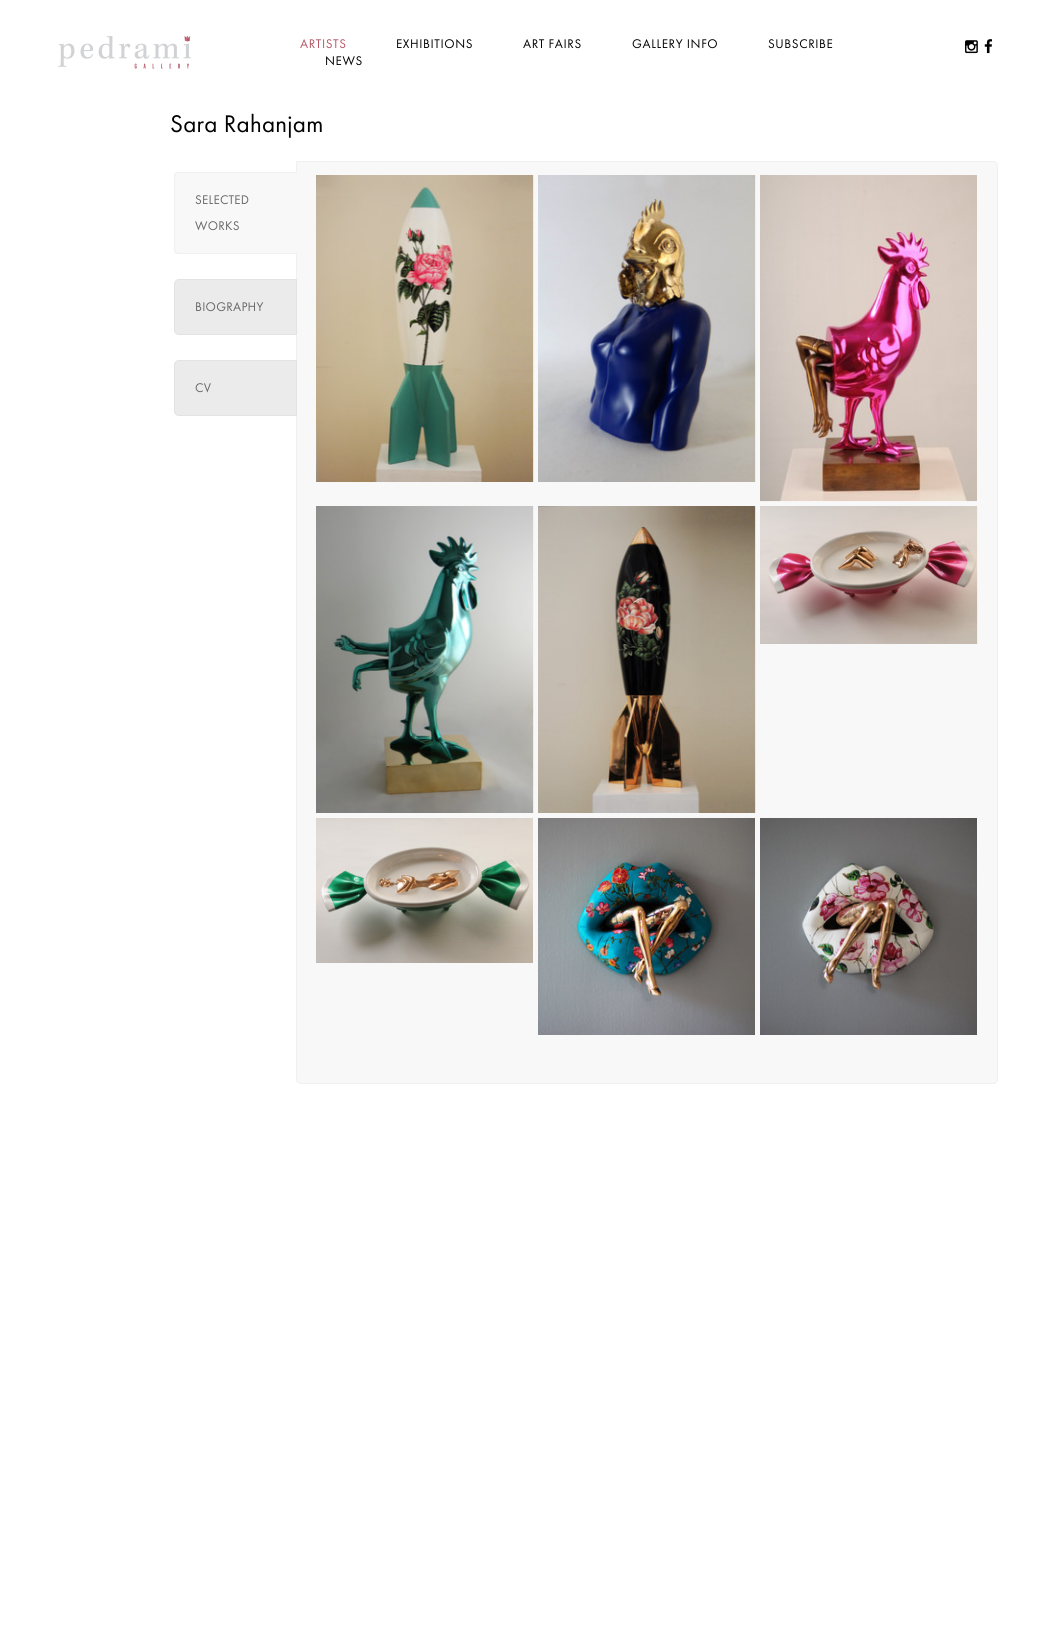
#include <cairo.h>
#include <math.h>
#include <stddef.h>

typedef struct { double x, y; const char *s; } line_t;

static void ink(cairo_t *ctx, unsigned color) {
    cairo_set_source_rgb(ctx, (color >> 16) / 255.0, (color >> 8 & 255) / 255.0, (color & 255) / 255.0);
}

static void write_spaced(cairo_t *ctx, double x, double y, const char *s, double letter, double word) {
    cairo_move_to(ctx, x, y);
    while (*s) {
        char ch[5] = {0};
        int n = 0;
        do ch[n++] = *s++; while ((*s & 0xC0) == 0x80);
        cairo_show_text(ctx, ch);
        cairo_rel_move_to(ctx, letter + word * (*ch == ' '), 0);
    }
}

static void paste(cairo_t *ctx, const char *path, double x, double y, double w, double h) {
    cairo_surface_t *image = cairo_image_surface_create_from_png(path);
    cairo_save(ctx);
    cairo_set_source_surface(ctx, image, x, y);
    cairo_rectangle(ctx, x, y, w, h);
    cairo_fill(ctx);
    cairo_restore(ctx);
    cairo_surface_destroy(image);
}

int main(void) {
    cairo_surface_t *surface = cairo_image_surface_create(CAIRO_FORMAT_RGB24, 1055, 1641);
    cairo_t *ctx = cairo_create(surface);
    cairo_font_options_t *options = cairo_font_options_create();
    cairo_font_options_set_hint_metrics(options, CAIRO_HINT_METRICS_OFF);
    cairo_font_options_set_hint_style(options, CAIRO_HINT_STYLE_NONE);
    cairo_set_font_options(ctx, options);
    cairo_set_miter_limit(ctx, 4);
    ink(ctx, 0xFFFFFF);
    cairo_paint(ctx);
    paste(ctx, "media/1.png", 58, 35, 133, 34);
    cairo_select_font_face(ctx, "Futura PT", CAIRO_FONT_SLANT_NORMAL, CAIRO_FONT_WEIGHT_NORMAL);
    cairo_set_font_size(ctx, 13);
    ink(ctx, 0xB55365);
    write_spaced(ctx, 300, 48, "ARTISTS", 0.6, 0);
    ink(ctx, 0x000000);
    {
        static const line_t items[] = {
            {396, 48, "EXHIBITIONS"},
            {523, 48, "ART FAIRS"},
            {632, 48, "GALLERY INFO"},
            {768, 48, "SUBSCRIBE"},
            {325, 65, "NEWS"},
        };
        for (size_t i = 0; i < sizeof items / sizeof *items; i++) {
            write_spaced(ctx, items[i].x, items[i].y, items[i].s, 0.6, 0);
        }
    }
    paste(ctx, "media/2.png", 965, 40, 13, 14);
    paste(ctx, "media/3.png", 984, 39, 9, 15);
    cairo_set_font_size(ctx, 25);
    write_spaced(ctx, 170, 132, "Sara Rahanjam", 0.25, 0);
    ink(ctx, 0xF8F8F8);
    cairo_new_path(ctx);
    cairo_move_to(ctx, 296.5, 161.5);
    cairo_line_to(ctx, 993, 161.5);
    cairo_curve_to(ctx, 995.5, 161.5, 997.5, 163.5, 997.5, 166);
    cairo_line_to(ctx, 997.5, 1079);
    cairo_curve_to(ctx, 997.5, 1081.5, 995.5, 1083.5, 993, 1083.5);
    cairo_line_to(ctx, 301, 1083.5);
    cairo_curve_to(ctx, 298.5, 1083.5, 296.5, 1081.5, 296.5, 1079);
    cairo_close_path(ctx);
    cairo_fill_preserve(ctx);
    ink(ctx, 0xF0F0F0);
    cairo_set_line_width(ctx, 1);
    cairo_stroke(ctx);
    ink(ctx, 0xF8F8F8);
    cairo_new_path(ctx);
    cairo_move_to(ctx, 179, 172);
    cairo_line_to(ctx, 297, 172);
    cairo_line_to(ctx, 297, 254);
    cairo_line_to(ctx, 179, 254);
    cairo_curve_to(ctx, 176, 254, 174, 252, 174, 249);
    cairo_line_to(ctx, 174, 177);
    cairo_curve_to(ctx, 174, 174, 176, 172, 179, 172);
    cairo_close_path(ctx);
    cairo_fill(ctx);
    ink(ctx, 0xF0F0F0);
    cairo_new_path(ctx);
    cairo_move_to(ctx, 179, 172);
    cairo_curve_to(ctx, 178, 172, 176, 172, 175, 173);
    cairo_line_to(ctx, 176, 174);
    cairo_line_to(ctx, 179, 173);
    cairo_line_to(ctx, 296, 173);
    cairo_line_to(ctx, 297, 172);
    cairo_close_path(ctx);
    cairo_fill(ctx);
    cairo_new_path(ctx);
    cairo_move_to(ctx, 297, 254);
    cairo_line_to(ctx, 296, 253);
    cairo_line_to(ctx, 179, 253);
    cairo_line_to(ctx, 176, 252);
    cairo_line_to(ctx, 175, 253);
    cairo_curve_to(ctx, 176, 254, 178, 254, 179, 254);
    cairo_close_path(ctx);
    cairo_fill(ctx);
    cairo_new_path(ctx);
    cairo_move_to(ctx, 174, 177);
    cairo_line_to(ctx, 174, 250);
    cairo_line_to(ctx, 175, 253);
    cairo_line_to(ctx, 176, 252);
    cairo_line_to(ctx, 175, 249);
    cairo_line_to(ctx, 175, 177);
    cairo_line_to(ctx, 176, 174);
    cairo_line_to(ctx, 175, 173);
    cairo_curve_to(ctx, 174, 174, 174, 176, 174, 177);
    cairo_close_path(ctx);
    cairo_fill(ctx);
    cairo_rectangle(ctx, 296, 171, 1, 2);
    cairo_fill(ctx);
    cairo_set_font_size(ctx, 13);
    ink(ctx, 0x666666);
    write_spaced(ctx, 195, 204, "SELECTED", 0.25, 0);
    write_spaced(ctx, 195, 230, "WORKS", 0.25, 0);
    ink(ctx, 0xF0F0F0);
    cairo_rectangle(ctx, 296, 253, 1, 1);
    cairo_fill(ctx);
    ink(ctx, 0xEBEBEB);
    cairo_new_path(ctx);
    cairo_move_to(ctx, 179, 279.5);
    cairo_line_to(ctx, 296.5, 279.5);
    cairo_line_to(ctx, 296.5, 334.5);
    cairo_line_to(ctx, 179, 334.5);
    cairo_curve_to(ctx, 176.5, 334.5, 174.5, 332.5, 174.5, 330);
    cairo_line_to(ctx, 174.5, 284);
    cairo_curve_to(ctx, 174.5, 281.5, 176.5, 279.5, 179, 279.5);
    cairo_close_path(ctx);
    cairo_fill_preserve(ctx);
    ink(ctx, 0xE3E3E3);
    cairo_stroke(ctx);
    ink(ctx, 0x666666);
    write_spaced(ctx, 195, 311, "BIOGRAPHY", 0.25, 0);
    ink(ctx, 0xEBEBEB);
    cairo_new_path(ctx);
    cairo_move_to(ctx, 179, 360.5);
    cairo_line_to(ctx, 296.5, 360.5);
    cairo_line_to(ctx, 296.5, 415.5);
    cairo_line_to(ctx, 179, 415.5);
    cairo_curve_to(ctx, 176.5, 415.5, 174.5, 413.5, 174.5, 411);
    cairo_line_to(ctx, 174.5, 365);
    cairo_curve_to(ctx, 174.5, 362.5, 176.5, 360.5, 179, 360.5);
    cairo_close_path(ctx);
    cairo_fill_preserve(ctx);
    ink(ctx, 0xE3E3E3);
    cairo_stroke(ctx);
    ink(ctx, 0x666666);
    write_spaced(ctx, 195, 392, "CV", 0.25, 0);
    paste(ctx, "media/4.png", 316, 175, 218, 307);
    paste(ctx, "media/5.png", 532, 175, 1, 307);
    paste(ctx, "media/6.png", 538, 175, 218, 307);
    paste(ctx, "media/7.png", 754, 175, 1, 307);
    paste(ctx, "media/8.png", 760, 175, 217, 327);
    paste(ctx, "media/9.png", 807, 237, 113, 252);
    paste(ctx, "media/10.png", 316, 506, 218, 307);
    paste(ctx, "media/11.png", 532, 506, 1, 307);
    paste(ctx, "media/12.png", 538, 506, 218, 307);
    paste(ctx, "media/13.png", 754, 506, 1, 307);
    paste(ctx, "media/14.png", 760, 506, 218, 138);
    paste(ctx, "media/15.png", 770, 531, 206, 64);
    paste(ctx, "media/16.png", 316, 818, 217, 145);
    paste(ctx, "media/17.png", 321, 818, 212, 145);
    paste(ctx, "media/18.png", 538, 818, 217, 217);
    paste(ctx, "media/19.png", 760, 818, 217, 217);
    cairo_surface_write_to_png(surface, "image.png");
    cairo_font_options_destroy(options);
    cairo_destroy(ctx);
    cairo_surface_destroy(surface);
    return 0;
}
